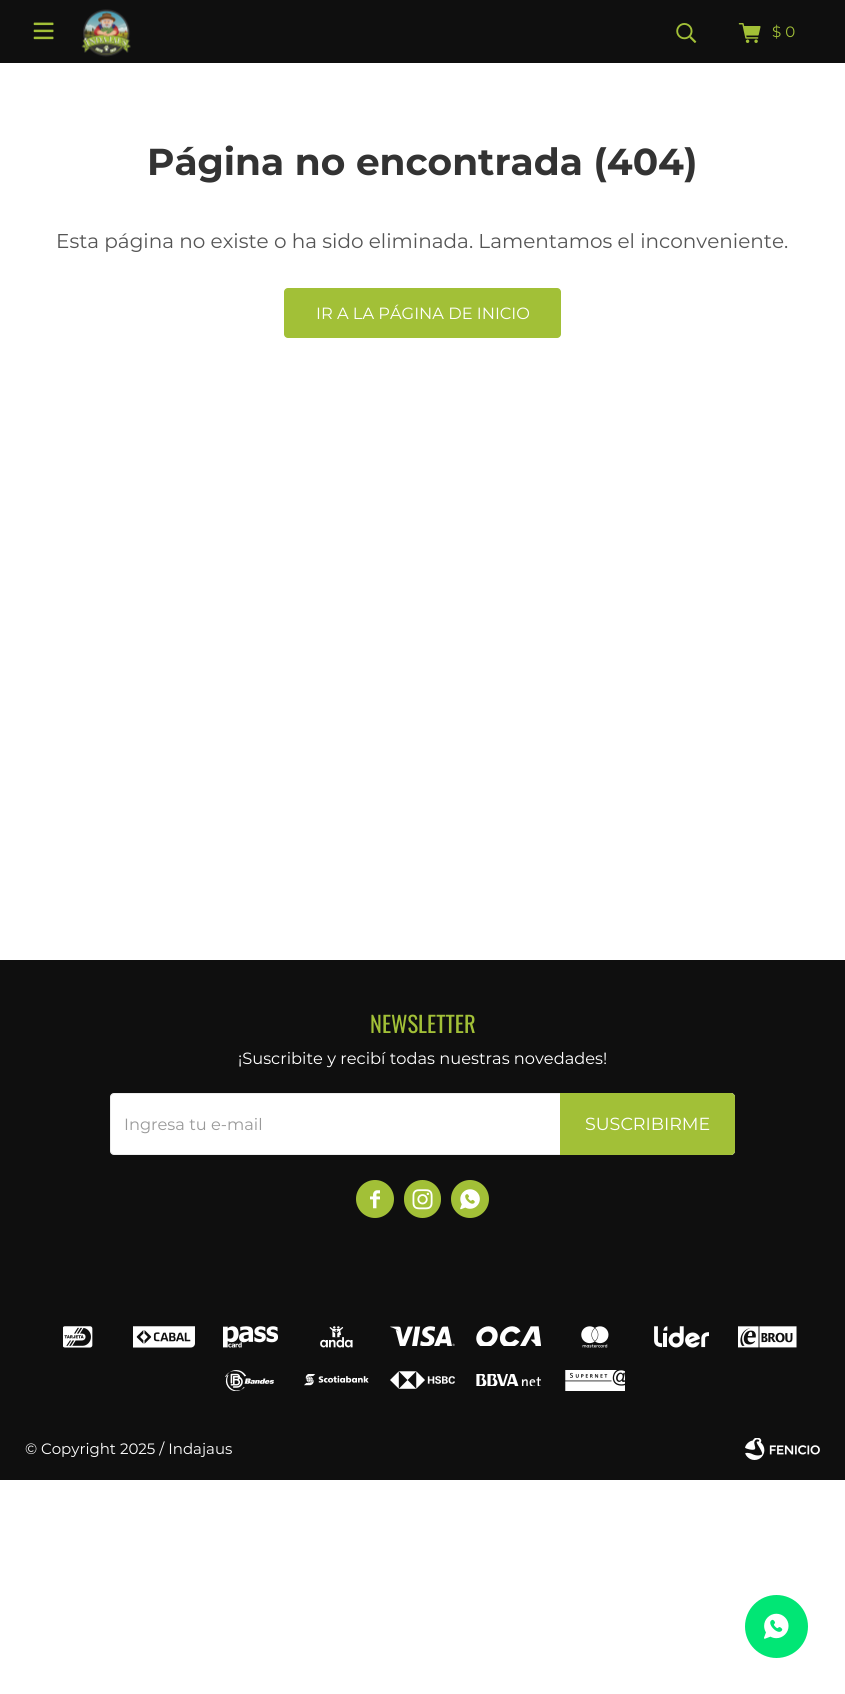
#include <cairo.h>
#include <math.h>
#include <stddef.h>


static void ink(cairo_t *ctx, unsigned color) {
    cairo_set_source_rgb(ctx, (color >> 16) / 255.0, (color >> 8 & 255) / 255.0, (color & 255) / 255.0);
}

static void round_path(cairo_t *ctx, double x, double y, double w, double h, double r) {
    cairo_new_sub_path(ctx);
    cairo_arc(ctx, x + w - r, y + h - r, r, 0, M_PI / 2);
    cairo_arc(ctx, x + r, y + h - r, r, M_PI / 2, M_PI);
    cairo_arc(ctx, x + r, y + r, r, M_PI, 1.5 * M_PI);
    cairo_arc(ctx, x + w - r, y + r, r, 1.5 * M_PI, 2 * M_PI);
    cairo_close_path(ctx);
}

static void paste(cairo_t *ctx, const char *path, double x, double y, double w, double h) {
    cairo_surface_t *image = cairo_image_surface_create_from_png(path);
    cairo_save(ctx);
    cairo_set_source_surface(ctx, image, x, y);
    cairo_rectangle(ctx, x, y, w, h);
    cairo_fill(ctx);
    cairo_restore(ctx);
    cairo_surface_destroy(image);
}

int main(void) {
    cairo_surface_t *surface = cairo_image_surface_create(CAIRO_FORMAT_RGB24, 845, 1694);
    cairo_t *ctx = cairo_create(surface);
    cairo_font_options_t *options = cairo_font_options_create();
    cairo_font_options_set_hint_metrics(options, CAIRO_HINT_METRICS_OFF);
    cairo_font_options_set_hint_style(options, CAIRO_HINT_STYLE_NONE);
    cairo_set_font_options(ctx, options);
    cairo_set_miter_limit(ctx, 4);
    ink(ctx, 0xFFFFFF);
    cairo_paint(ctx);
    ink(ctx, 0x0F0F0F);
    cairo_rectangle(ctx, 0, 0, 845, 63);
    cairo_fill(ctx);
    paste(ctx, "media/1.png", 33, 22, 21, 18);
    paste(ctx, "media/2.png", 81, 9, 50, 48);
    paste(ctx, "media/3.png", 676, 23, 21, 20);
    paste(ctx, "media/4.png", 738, 23, 23, 20);
    cairo_select_font_face(ctx, "Montserrat", CAIRO_FONT_SLANT_NORMAL, CAIRO_FONT_WEIGHT_NORMAL);
    cairo_set_font_size(ctx, 15);
    ink(ctx, 0xA2C037);
    cairo_move_to(ctx, 772, 37);
    cairo_show_text(ctx, "$ 0");
    cairo_select_font_face(ctx, "Montserrat", CAIRO_FONT_SLANT_NORMAL, CAIRO_FONT_WEIGHT_BOLD);
    cairo_set_font_size(ctx, 37.5);
    ink(ctx, 0x333333);
    cairo_move_to(ctx, 147, 175);
    cairo_show_text(ctx, "Página no encontrada (404)");
    cairo_select_font_face(ctx, "Montserrat", CAIRO_FONT_SLANT_NORMAL, CAIRO_FONT_WEIGHT_NORMAL);
    cairo_set_font_size(ctx, 20);
    ink(ctx, 0x555555);
    cairo_move_to(ctx, 56, 248);
    cairo_show_text(ctx, "Esta página no existe o ha sido eliminada. Lamentamos el inconveniente.");
    ink(ctx, 0xA2C037);
    round_path(ctx, 284, 288, 277, 50, 4);
    cairo_fill(ctx);
    cairo_set_font_size(ctx, 16.25);
    ink(ctx, 0xFFFFFF);
    cairo_move_to(ctx, 316, 319);
    cairo_show_text(ctx, "IR A LA PÁGINA DE INICIO");
    ink(ctx, 0x0F0F0F);
    cairo_rectangle(ctx, 0, 960, 845, 520);
    cairo_fill(ctx);
    cairo_select_font_face(ctx, "Oswald", CAIRO_FONT_SLANT_NORMAL, CAIRO_FONT_WEIGHT_NORMAL);
    cairo_set_font_size(ctx, 22.5);
    ink(ctx, 0xA2C037);
    cairo_move_to(ctx, 370, 1033);
    cairo_show_text(ctx, "NEWSLETTER");
    cairo_select_font_face(ctx, "Montserrat", CAIRO_FONT_SLANT_NORMAL, CAIRO_FONT_WEIGHT_NORMAL);
    cairo_set_font_size(ctx, 16.25);
    ink(ctx, 0xFFFFFF);
    cairo_move_to(ctx, 238, 1064);
    cairo_show_text(ctx, "¡Suscribite y recibí todas nuestras novedades!");
    round_path(ctx, 110.5, 1093.5, 624, 61, 3.5);
    cairo_fill_preserve(ctx);
    ink(ctx, 0xEDEDED);
    cairo_set_line_width(ctx, 1);
    cairo_stroke(ctx);
    ink(ctx, 0x999999);
    cairo_move_to(ctx, 124, 1130);
    cairo_show_text(ctx, "Ingresa tu e-mail");
    ink(ctx, 0xA2C037);
    cairo_new_path(ctx);
    cairo_move_to(ctx, 560, 1093);
    cairo_line_to(ctx, 731, 1093);
    cairo_curve_to(ctx, 733, 1093, 735, 1095, 735, 1097);
    cairo_line_to(ctx, 735, 1151);
    cairo_curve_to(ctx, 735, 1153, 733, 1155, 731, 1155);
    cairo_line_to(ctx, 560, 1155);
    cairo_close_path(ctx);
    cairo_fill(ctx);
    cairo_set_font_size(ctx, 17.5);
    ink(ctx, 0xFFFFFF);
    cairo_move_to(ctx, 585, 1130);
    cairo_show_text(ctx, "SUSCRIBIRME");
    ink(ctx, 0xA2C037);
    cairo_new_path(ctx);
    cairo_arc(ctx, 375, 1199, 19, 0, 2 * M_PI);
    cairo_fill(ctx);
    paste(ctx, "media/5.png", 370, 1190, 10, 19);
    round_path(ctx, 404, 1180, 37, 38, 18.5);
    cairo_fill(ctx);
    paste(ctx, "media/6.png", 412, 1189, 21, 21);
    cairo_arc(ctx, 470, 1199, 19, 0, 2 * M_PI);
    cairo_fill(ctx);
    paste(ctx, "media/7.png", 460, 1189, 20, 21);
    paste(ctx, "media/8.png", 63, 1326, 30, 22);
    paste(ctx, "media/9.png", 133, 1326, 62, 22);
    paste(ctx, "media/10.png", 223, 1326, 55, 22);
    paste(ctx, "media/11.png", 320, 1326, 33, 22);
    paste(ctx, "media/12.png", 390, 1326, 65, 20);
    paste(ctx, "media/13.png", 476, 1326, 65, 20);
    paste(ctx, "media/14.png", 581, 1326, 28, 22);
    paste(ctx, "media/15.png", 654, 1326, 55, 22);
    paste(ctx, "media/16.png", 738, 1326, 59, 22);
    paste(ctx, "media/17.png", 225, 1370, 49, 21);
    paste(ctx, "media/18.png", 304, 1374, 65, 12);
    paste(ctx, "media/19.png", 390, 1371, 65, 18);
    paste(ctx, "media/20.png", 476, 1374, 65, 12);
    paste(ctx, "media/21.png", 565, 1370, 60, 21);
    cairo_set_font_size(ctx, 15);
    ink(ctx, 0xFFFFFF);
    cairo_move_to(ctx, 25, 1454);
    cairo_show_text(ctx, "© Copyright 2025 / Indajaus");
    paste(ctx, "media/22.png", 745, 1438, 75, 22);
    ink(ctx, 0x01E675);
    cairo_arc(ctx, 776.5, 1626.5, 31.5, 0, 2 * M_PI);
    cairo_fill(ctx);
    paste(ctx, "media/23.png", 764, 1613, 25, 26);
    cairo_surface_write_to_png(surface, "image.png");
    cairo_font_options_destroy(options);
    cairo_destroy(ctx);
    cairo_surface_destroy(surface);
    return 0;
}
